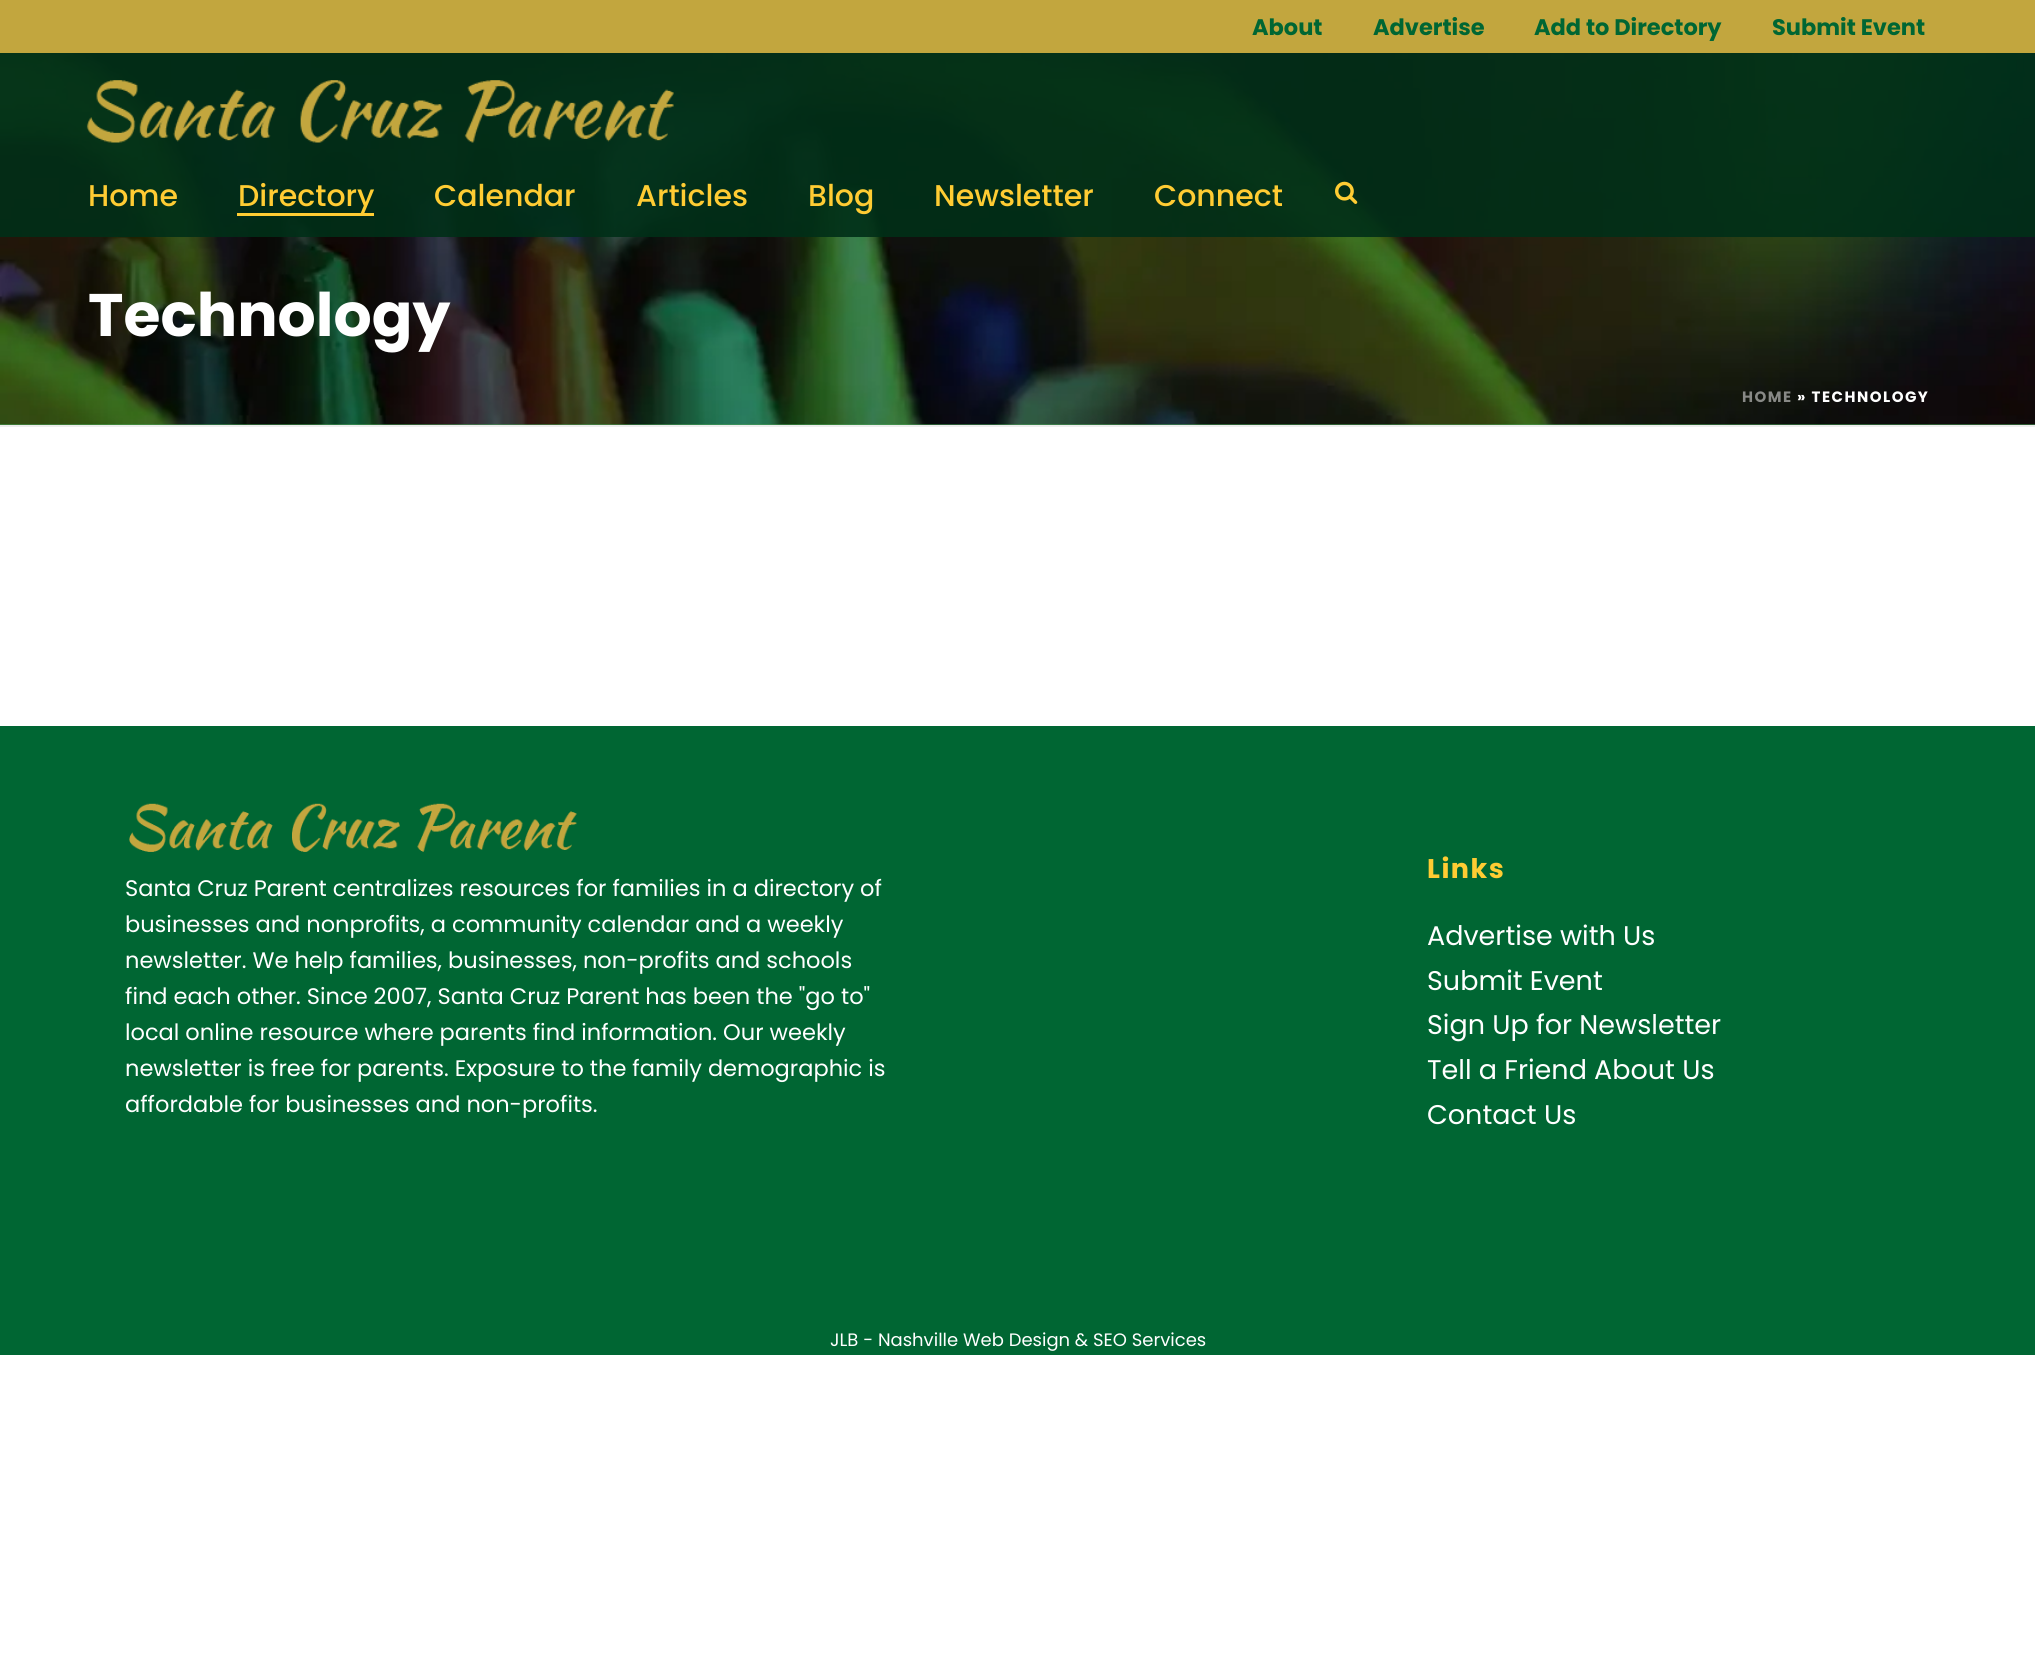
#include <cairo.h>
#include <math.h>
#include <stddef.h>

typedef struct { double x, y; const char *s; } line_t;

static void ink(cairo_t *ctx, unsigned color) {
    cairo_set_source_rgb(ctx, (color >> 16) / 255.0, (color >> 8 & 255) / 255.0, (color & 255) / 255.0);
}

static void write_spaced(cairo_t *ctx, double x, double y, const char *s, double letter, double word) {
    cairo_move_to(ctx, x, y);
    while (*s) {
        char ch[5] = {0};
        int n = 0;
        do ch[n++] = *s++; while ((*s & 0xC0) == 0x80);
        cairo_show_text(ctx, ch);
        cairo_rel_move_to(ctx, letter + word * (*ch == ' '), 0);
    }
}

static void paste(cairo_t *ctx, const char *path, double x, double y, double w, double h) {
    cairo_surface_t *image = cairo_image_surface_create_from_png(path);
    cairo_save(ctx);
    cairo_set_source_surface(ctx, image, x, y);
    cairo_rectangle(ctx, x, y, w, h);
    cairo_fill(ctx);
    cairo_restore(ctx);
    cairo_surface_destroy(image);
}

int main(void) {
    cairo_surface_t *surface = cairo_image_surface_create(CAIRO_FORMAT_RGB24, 2035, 1658);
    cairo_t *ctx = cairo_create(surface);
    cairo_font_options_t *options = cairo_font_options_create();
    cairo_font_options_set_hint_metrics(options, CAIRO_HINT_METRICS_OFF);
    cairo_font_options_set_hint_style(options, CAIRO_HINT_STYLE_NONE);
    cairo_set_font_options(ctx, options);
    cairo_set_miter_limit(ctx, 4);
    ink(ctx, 0xFFFFFF);
    cairo_paint(ctx);
    ink(ctx, 0x4AA758);
    cairo_rectangle(ctx, 0, 424, 2035, 1);
    cairo_fill(ctx);
    paste(ctx, "media/1.png", 0, 53, 2035, 372);
    ink(ctx, 0xEDEDED);
    cairo_rectangle(ctx, 0, 425, 2035, 2);
    cairo_fill(ctx);
    ink(ctx, 0xC2A63E);
    cairo_rectangle(ctx, 0, 0, 2035, 53);
    cairo_fill(ctx);
    cairo_select_font_face(ctx, "Poppins", CAIRO_FONT_SLANT_NORMAL, CAIRO_FONT_WEIGHT_BOLD);
    cairo_set_font_size(ctx, 22.5);
    ink(ctx, 0x006633);
    {
        static const line_t items[] = {
            {1252, 35, "About"},
            {1373, 35, "Advertise"},
            {1534, 35, "Add to Directory"},
            {1772, 35, "Submit Event"},
        };
        for (size_t i = 0; i < sizeof items / sizeof *items; i++) {
            cairo_move_to(ctx, items[i].x, items[i].y);
            cairo_show_text(ctx, items[i].s);
        }
    }
    cairo_set_source_rgba(ctx, 0, 0.184, 0.094, 0.9);
    cairo_rectangle(ctx, 0, 53, 2035, 184);
    cairo_fill(ctx);
    paste(ctx, "media/2.png", 86, 80, 588, 63);
    cairo_select_font_face(ctx, "Poppins Medium", CAIRO_FONT_SLANT_NORMAL, CAIRO_FONT_WEIGHT_NORMAL);
    cairo_set_font_size(ctx, 30);
    ink(ctx, 0xFFCC33);
    cairo_move_to(ctx, 88, 206);
    cairo_show_text(ctx, "Home");
    cairo_move_to(ctx, 238, 206);
    cairo_show_text(ctx, "Directory");
    cairo_rectangle(ctx, 237, 213, 137, 3);
    cairo_fill(ctx);
    {
        static const line_t items[] = {
            {434, 206, "Calendar"},
            {636, 206, "Articles"},
            {808, 206, "Blog"},
            {934, 206, "Newsletter"},
            {1154, 206, "Connect"},
        };
        for (size_t i = 0; i < sizeof items / sizeof *items; i++) {
            cairo_move_to(ctx, items[i].x, items[i].y);
            cairo_show_text(ctx, items[i].s);
        }
    }
    paste(ctx, "media/3.png", 1335, 181, 23, 23);
    cairo_select_font_face(ctx, "Poppins", CAIRO_FONT_SLANT_NORMAL, CAIRO_FONT_WEIGHT_BOLD);
    cairo_set_font_size(ctx, 60);
    ink(ctx, 0xFFFFFF);
    cairo_move_to(ctx, 88, 336);
    cairo_show_text(ctx, "Technology");
    cairo_set_font_size(ctx, 15);
    ink(ctx, 0x888986);
    write_spaced(ctx, 1742, 402, "HOME", 1.5, 0);
    ink(ctx, 0xFFFFFF);
    write_spaced(ctx, 1797, 402, "» TECHNOLOGY", 1.5, 0);
    ink(ctx, 0x006633);
    cairo_rectangle(ctx, 0, 726, 2035, 629);
    cairo_fill(ctx);
    paste(ctx, "media/4.png", 129, 803, 448, 49);
    cairo_select_font_face(ctx, "Poppins", CAIRO_FONT_SLANT_NORMAL, CAIRO_FONT_WEIGHT_NORMAL);
    cairo_set_font_size(ctx, 22.5);
    ink(ctx, 0xFFFFFF);
    {
        static const line_t items[] = {
            {125, 896, "Santa Cruz Parent centralizes resources for families in a directory of"},
            {125, 932, "businesses and nonprofits, a community calendar and a weekly"},
            {125, 968, "newsletter. We help families, businesses, non-profits and schools"},
            {125, 1004, "find each other. Since 2007, Santa Cruz Parent has been the \"go to\""},
            {125, 1040, "local online resource where parents find information. Our weekly"},
            {125, 1076, "newsletter is free for parents. Exposure to the family demographic is"},
            {125, 1112, "affordable for businesses and non-profits."},
        };
        for (size_t i = 0; i < sizeof items / sizeof *items; i++) {
            cairo_move_to(ctx, items[i].x, items[i].y);
            cairo_show_text(ctx, items[i].s);
        }
    }
    cairo_select_font_face(ctx, "Poppins", CAIRO_FONT_SLANT_NORMAL, CAIRO_FONT_WEIGHT_BOLD);
    cairo_set_font_size(ctx, 27);
    ink(ctx, 0xFFCC33);
    write_spaced(ctx, 1427, 878, "Links", 1.5, 0);
    cairo_select_font_face(ctx, "Poppins", CAIRO_FONT_SLANT_NORMAL, CAIRO_FONT_WEIGHT_NORMAL);
    ink(ctx, 0xFFFFFF);
    {
        static const line_t items[] = {
            {1427, 945, "Advertise with Us"},
            {1427, 990, "Submit Event"},
            {1427, 1034, "Sign Up for Newsletter"},
            {1427, 1079, "Tell a Friend About Us"},
            {1427, 1124, "Contact Us"},
        };
        for (size_t i = 0; i < sizeof items / sizeof *items; i++) {
            cairo_move_to(ctx, items[i].x, items[i].y);
            cairo_show_text(ctx, items[i].s);
        }
    }
    cairo_set_font_size(ctx, 18);
    cairo_move_to(ctx, 830, 1346);
    cairo_show_text(ctx, "JLB - Nashville Web Design & SEO Services");
    cairo_surface_write_to_png(surface, "image.png");
    cairo_font_options_destroy(options);
    cairo_destroy(ctx);
    cairo_surface_destroy(surface);
    return 0;
}
